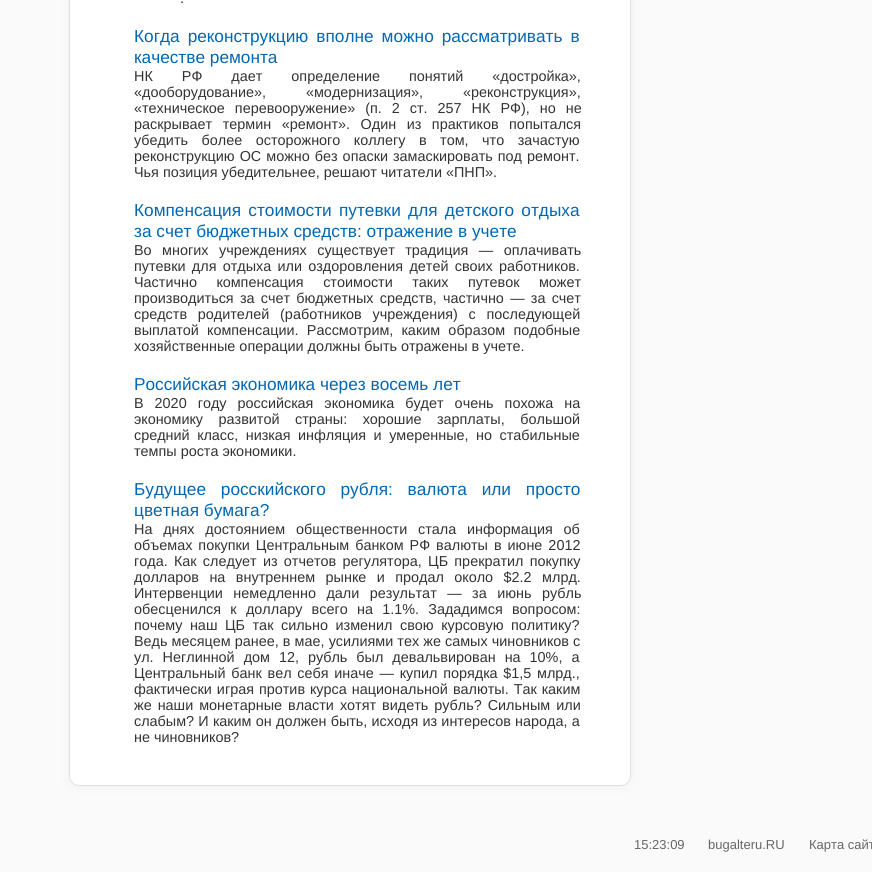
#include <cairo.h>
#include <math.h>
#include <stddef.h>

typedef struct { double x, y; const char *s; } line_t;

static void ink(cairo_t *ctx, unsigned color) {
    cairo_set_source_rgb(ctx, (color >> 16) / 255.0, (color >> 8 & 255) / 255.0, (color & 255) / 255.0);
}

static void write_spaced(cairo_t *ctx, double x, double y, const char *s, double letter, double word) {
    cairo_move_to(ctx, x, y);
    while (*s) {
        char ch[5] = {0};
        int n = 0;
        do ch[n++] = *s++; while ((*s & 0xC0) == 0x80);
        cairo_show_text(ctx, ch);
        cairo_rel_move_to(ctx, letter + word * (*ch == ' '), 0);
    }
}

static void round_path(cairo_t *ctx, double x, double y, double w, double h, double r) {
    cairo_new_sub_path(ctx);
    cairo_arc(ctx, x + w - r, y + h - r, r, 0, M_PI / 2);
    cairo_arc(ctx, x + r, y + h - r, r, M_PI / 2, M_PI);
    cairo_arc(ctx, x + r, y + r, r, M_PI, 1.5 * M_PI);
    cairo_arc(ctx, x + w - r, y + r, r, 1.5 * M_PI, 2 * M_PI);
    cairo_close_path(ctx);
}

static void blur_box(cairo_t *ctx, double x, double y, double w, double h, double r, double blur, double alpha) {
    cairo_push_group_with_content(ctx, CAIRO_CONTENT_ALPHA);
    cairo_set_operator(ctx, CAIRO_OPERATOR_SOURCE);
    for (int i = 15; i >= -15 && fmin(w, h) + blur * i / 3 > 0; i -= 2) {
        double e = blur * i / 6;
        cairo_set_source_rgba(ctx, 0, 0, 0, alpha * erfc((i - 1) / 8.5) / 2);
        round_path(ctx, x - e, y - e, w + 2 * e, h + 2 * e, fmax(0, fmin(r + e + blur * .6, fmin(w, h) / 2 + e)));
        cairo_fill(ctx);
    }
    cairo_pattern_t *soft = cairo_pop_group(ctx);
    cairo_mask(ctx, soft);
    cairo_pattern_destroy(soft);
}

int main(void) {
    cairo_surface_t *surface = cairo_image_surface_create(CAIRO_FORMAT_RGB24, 872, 872);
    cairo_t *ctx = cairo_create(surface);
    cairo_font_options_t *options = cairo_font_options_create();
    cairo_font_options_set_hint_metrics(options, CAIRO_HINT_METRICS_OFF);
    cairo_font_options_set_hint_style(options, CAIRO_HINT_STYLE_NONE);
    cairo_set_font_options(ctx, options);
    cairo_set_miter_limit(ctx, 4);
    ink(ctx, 0xFAFAFA);
    cairo_paint(ctx);
    ink(ctx, 0xEFEFEF);
    blur_box(ctx, 69, -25, 562, 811, 10, 5, 1);
    ink(ctx, 0xFFFFFF);
    round_path(ctx, 69.5, -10.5, 561, 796, 9.5);
    cairo_fill_preserve(ctx);
    ink(ctx, 0xE1E1E1);
    cairo_set_line_width(ctx, 1);
    cairo_stroke(ctx);
    cairo_select_font_face(ctx, "Liberation Sans", CAIRO_FONT_SLANT_NORMAL, CAIRO_FONT_WEIGHT_NORMAL);
    cairo_set_font_size(ctx, 14.4);
    ink(ctx, 0x333333);
    cairo_move_to(ctx, 180, 3);
    cairo_show_text(ctx, ".");
    cairo_set_font_size(ctx, 17.25);
    ink(ctx, 0x0267B2);
    write_spaced(ctx, 134, 42, "Когда реконструкцию вполне можно рассматривать в", 0, 3.25);
    cairo_move_to(ctx, 134, 63);
    cairo_show_text(ctx, "качестве ремонта");
    cairo_set_font_size(ctx, 14.4);
    ink(ctx, 0x333333);
    write_spaced(ctx, 134, 81, "НК РФ дает определение понятий «достройка»,", 0, 25);
    write_spaced(ctx, 134, 97, "«дооборудование», «модернизация», «реконструкция»,", 0, 36);
    write_spaced(ctx, 134, 113, "«техническое перевооружение» (п. 2 ст. 257 НК РФ), но не", 0, 6);
    write_spaced(ctx, 134, 129, "раскрывает термин «ремонт». Один из практиков попытался", 0, 6.5);
    write_spaced(ctx, 134, 145, "убедить более осторожного коллегу в том, что зачастую", 0, 9.5);
    write_spaced(ctx, 134, 161, "реконструкцию ОС можно без опаски замаскировать под ремонт.", 0, 1);
    cairo_move_to(ctx, 134, 177);
    cairo_show_text(ctx, "Чья позиция убедительнее, решают читатели «ПНП».");
    cairo_set_font_size(ctx, 17.25);
    ink(ctx, 0x0267B2);
    write_spaced(ctx, 134, 216, "Компенсация стоимости путевки для детского отдыха", 0, 2.5);
    cairo_move_to(ctx, 134, 237);
    cairo_show_text(ctx, "за счет бюджетных средств: отражение в учете");
    cairo_set_font_size(ctx, 14.4);
    ink(ctx, 0x333333);
    write_spaced(ctx, 134, 255, "Во многих учреждениях существует традиция — оплачивать", 0, 6.5);
    write_spaced(ctx, 134, 271, "путевки для отдыха или оздоровления детей своих работников.", 0, 2.25);
    write_spaced(ctx, 134, 287, "Частично компенсация стоимости таких путевок может", 0, 15.5);
    write_spaced(ctx, 134, 303, "производиться за счет бюджетных средств, частично — за счет", 0, 2.25);
    write_spaced(ctx, 134, 319, "средств родителей (работников учреждения) с последующей", 0, 6.75);
    write_spaced(ctx, 134, 335, "выплатой компенсации. Рассмотрим, каким образом подобные", 0, 4.25);
    cairo_move_to(ctx, 134, 351);
    cairo_show_text(ctx, "хозяйственные операции должны быть отражены в учете.");
    cairo_set_font_size(ctx, 17.25);
    ink(ctx, 0x0267B2);
    cairo_move_to(ctx, 134, 390);
    cairo_show_text(ctx, "Российская экономика через восемь лет");
    cairo_set_font_size(ctx, 14.4);
    ink(ctx, 0x333333);
    write_spaced(ctx, 134, 408, "В 2020 году российская экономика будет очень похожа на", 0, 7);
    write_spaced(ctx, 134, 424, "экономику развитой страны: хорошие зарплаты, большой", 0, 11.5);
    write_spaced(ctx, 134, 440, "средний класс, низкая инфляция и умеренные, но стабильные", 0, 3.5);
    cairo_move_to(ctx, 134, 456);
    cairo_show_text(ctx, "темпы роста экономики.");
    cairo_set_font_size(ctx, 17.25);
    ink(ctx, 0x0267B2);
    write_spaced(ctx, 134, 495, "Будущее росскийского рубля: валюта или просто", 0, 10);
    cairo_move_to(ctx, 134, 516);
    cairo_show_text(ctx, "цветная бумага?");
    cairo_set_font_size(ctx, 14.4);
    ink(ctx, 0x333333);
    write_spaced(ctx, 134, 534, "На днях достоянием общественности стала информация об", 0, 6.75);
    write_spaced(ctx, 134, 550, "объемах покупки Центральным банком РФ валюты в июне 2012", 0, 2);
    write_spaced(ctx, 134, 566, "года. Как следует из отчетов регулятора, ЦБ прекратил покупку", 0, 2.25);
    write_spaced(ctx, 134, 582, "долларов на внутреннем рынке и продал около $2.2 млрд.", 0, 6.5);
    write_spaced(ctx, 134, 598, "Интервенции немедленно дали результат — за июнь рубль", 0, 6.5);
    write_spaced(ctx, 134, 614, "обесценился к доллару всего на 1.1%. Зададимся вопросом:", 0, 5.25);
    write_spaced(ctx, 134, 630, "почему наш ЦБ так сильно изменил свою курсовую политику?", 0, 3.5);
    write_spaced(ctx, 134, 646, "Ведь месяцем ранее, в мае, усилиями тех же самых чиновников с", 0, 0.1);
    write_spaced(ctx, 134, 662, "ул. Неглинной дом 12, рубль был девальвирован на 10%, а", 0, 5);
    write_spaced(ctx, 134, 678, "Центральный банк вел себя иначе — купил порядка $1,5 млрд.,", 0, 1.75);
    write_spaced(ctx, 134, 694, "фактически играя против курса национальной валюты. Так каким", 0, 1);
    write_spaced(ctx, 134, 710, "же наши монетарные власти хотят видеть рубль? Сильным или", 0, 2);
    write_spaced(ctx, 134, 726, "слабым? И каким он должен быть, исходя из интересов народа, а", 0, 0.25);
    cairo_move_to(ctx, 134, 742);
    cairo_show_text(ctx, "не чиновников?");
    cairo_set_font_size(ctx, 13);
    ink(ctx, 0x666666);
    {
        static const line_t items[] = {
            {634, 849, "15:23:09"},
            {708, 849, "bugalteru.RU"},
            {809, 849, "Карта сайт"},
        };
        for (size_t i = 0; i < sizeof items / sizeof *items; i++) {
            cairo_move_to(ctx, items[i].x, items[i].y);
            cairo_show_text(ctx, items[i].s);
        }
    }
    cairo_surface_write_to_png(surface, "image.png");
    cairo_font_options_destroy(options);
    cairo_destroy(ctx);
    cairo_surface_destroy(surface);
    return 0;
}
